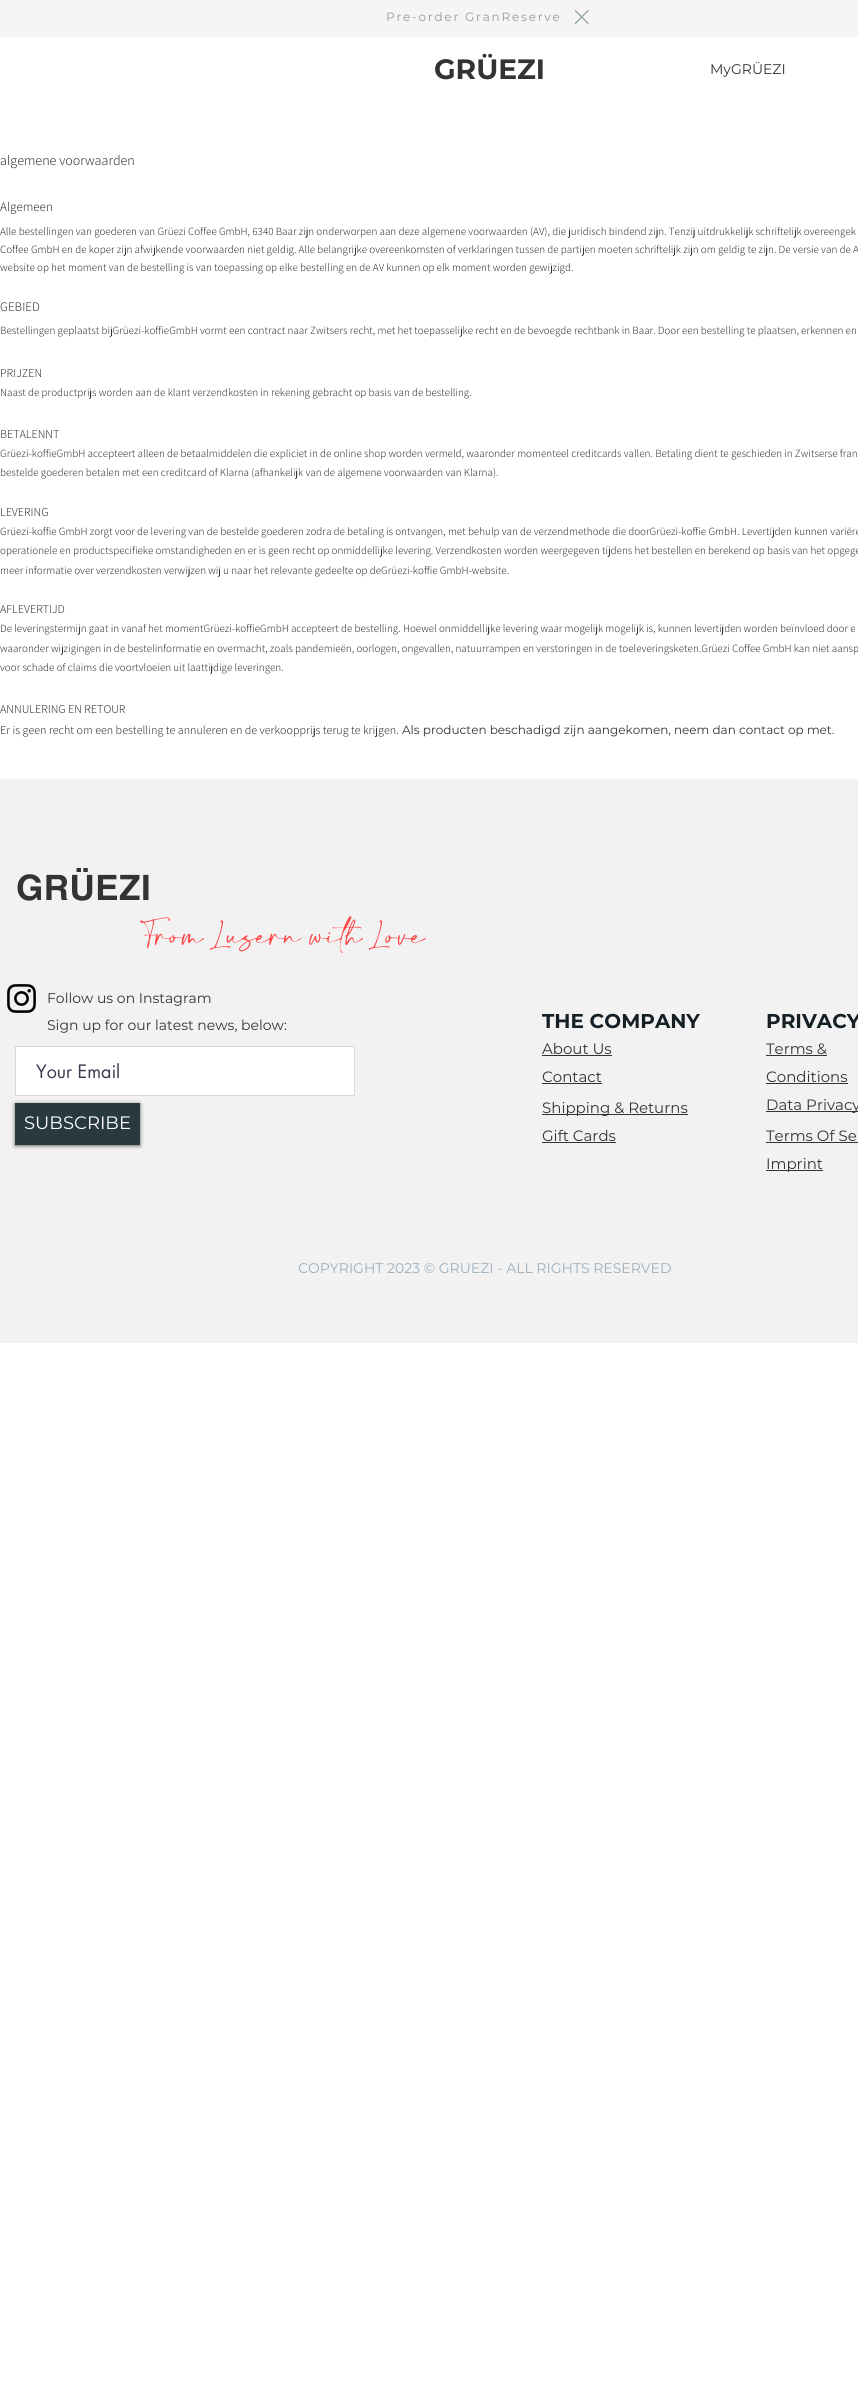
#include <cairo.h>
#include <math.h>
#include <stddef.h>

typedef struct { double x, y; const char *s; } line_t;

static void ink(cairo_t *ctx, unsigned color) {
    cairo_set_source_rgb(ctx, (color >> 16) / 255.0, (color >> 8 & 255) / 255.0, (color & 255) / 255.0);
}

static void write_spaced(cairo_t *ctx, double x, double y, const char *s, double letter, double word) {
    cairo_move_to(ctx, x, y);
    while (*s) {
        char ch[5] = {0};
        int n = 0;
        do ch[n++] = *s++; while ((*s & 0xC0) == 0x80);
        cairo_show_text(ctx, ch);
        cairo_rel_move_to(ctx, letter + word * (*ch == ' '), 0);
    }
}

static void round_path(cairo_t *ctx, double x, double y, double w, double h, double r) {
    cairo_new_sub_path(ctx);
    cairo_arc(ctx, x + w - r, y + h - r, r, 0, M_PI / 2);
    cairo_arc(ctx, x + r, y + h - r, r, M_PI / 2, M_PI);
    cairo_arc(ctx, x + r, y + r, r, M_PI, 1.5 * M_PI);
    cairo_arc(ctx, x + w - r, y + r, r, 1.5 * M_PI, 2 * M_PI);
    cairo_close_path(ctx);
}

static void blur_box(cairo_t *ctx, double x, double y, double w, double h, double r, double blur, double alpha) {
    cairo_push_group_with_content(ctx, CAIRO_CONTENT_ALPHA);
    cairo_set_operator(ctx, CAIRO_OPERATOR_SOURCE);
    for (int i = 15; i >= -15 && fmin(w, h) + blur * i / 3 > 0; i -= 2) {
        double e = blur * i / 6;
        cairo_set_source_rgba(ctx, 0, 0, 0, alpha * erfc((i - 1) / 8.5) / 2);
        round_path(ctx, x - e, y - e, w + 2 * e, h + 2 * e, fmax(0, fmin(r + e + blur * .6, fmin(w, h) / 2 + e)));
        cairo_fill(ctx);
    }
    cairo_pattern_t *soft = cairo_pop_group(ctx);
    cairo_mask(ctx, soft);
    cairo_pattern_destroy(soft);
}

static void paste(cairo_t *ctx, const char *path, double x, double y, double w, double h) {
    cairo_surface_t *image = cairo_image_surface_create_from_png(path);
    cairo_save(ctx);
    cairo_set_source_surface(ctx, image, x, y);
    cairo_rectangle(ctx, x, y, w, h);
    cairo_fill(ctx);
    cairo_restore(ctx);
    cairo_surface_destroy(image);
}

int main(void) {
    cairo_surface_t *surface = cairo_image_surface_create(CAIRO_FORMAT_RGB24, 858, 2392);
    cairo_t *ctx = cairo_create(surface);
    cairo_font_options_t *options = cairo_font_options_create();
    cairo_font_options_set_hint_metrics(options, CAIRO_HINT_METRICS_OFF);
    cairo_font_options_set_hint_style(options, CAIRO_HINT_STYLE_NONE);
    cairo_set_font_options(ctx, options);
    cairo_set_miter_limit(ctx, 4);
    ink(ctx, 0xFFFFFF);
    cairo_paint(ctx);
    ink(ctx, 0xF6F5F3);
    cairo_rectangle(ctx, 0, 0, 858, 37);
    cairo_fill(ctx);
    cairo_select_font_face(ctx, "Montserrat", CAIRO_FONT_SLANT_NORMAL, CAIRO_FONT_WEIGHT_NORMAL);
    cairo_set_font_size(ctx, 12);
    ink(ctx, 0x999898);
    write_spaced(ctx, 386, 21, "Pre-order GranReserve", 1.8, 0);
    paste(ctx, "media/1.png", 574, 9, 15, 16);
    cairo_select_font_face(ctx, "Montserrat", CAIRO_FONT_SLANT_NORMAL, CAIRO_FONT_WEIGHT_BOLD);
    cairo_set_font_size(ctx, 28);
    ink(ctx, 0x333333);
    cairo_move_to(ctx, 434, 79);
    cairo_show_text(ctx, "GRÜEZI");
    cairo_select_font_face(ctx, "Montserrat", CAIRO_FONT_SLANT_NORMAL, CAIRO_FONT_WEIGHT_NORMAL);
    cairo_set_font_size(ctx, 14);
    cairo_move_to(ctx, 710, 74);
    cairo_show_text(ctx, "MyGRÜEZI");
    cairo_select_font_face(ctx, "Assistant Light", CAIRO_FONT_SLANT_NORMAL, CAIRO_FONT_WEIGHT_NORMAL);
    cairo_move_to(ctx, 0, 165);
    cairo_show_text(ctx, "algemene voorwaarden");
    cairo_set_font_size(ctx, 13);
    cairo_move_to(ctx, 0, 211);
    cairo_show_text(ctx, "Algemeen");
    cairo_set_font_size(ctx, 11);
    {
        static const line_t items[] = {
            {0, 235, "Alle bestellingen van goederen van Grüezi Coffee GmbH, 6340 Baar zijn onderworpen aan deze algemene voorwaarden (AV), die juridisch bindend zijn. Tenzij uitdrukkelijk schriftelijk overeengek"},
            {0, 253, "Coffee GmbH en de koper zijn afwijkende voorwaarden niet geldig. Alle belangrijke overeenkomsten of verklaringen tussen de partijen moeten schriftelijk zijn om geldig te zijn. De versie van de A"},
            {0, 271, "website op het moment van de bestelling is van toepassing op elke bestelling en de AV kunnen op elk moment worden gewijzigd."},
        };
        for (size_t i = 0; i < sizeof items / sizeof *items; i++) {
            cairo_move_to(ctx, items[i].x, items[i].y);
            cairo_show_text(ctx, items[i].s);
        }
    }
    cairo_set_font_size(ctx, 13);
    cairo_move_to(ctx, 0, 311);
    cairo_show_text(ctx, "GEBIED");
    cairo_set_font_size(ctx, 11);
    cairo_move_to(ctx, 0, 334);
    cairo_show_text(ctx, "Bestellingen geplaatst bijGrüezi-koffieGmbH vormt een contract naar Zwitsers recht, met het toepasselijke recht en de bevoegde rechtbank in Baar. Door een bestelling te plaatsen, erkennen en");
    cairo_set_font_size(ctx, 12);
    cairo_move_to(ctx, 0, 377);
    cairo_show_text(ctx, "PRIJZEN");
    cairo_set_font_size(ctx, 11);
    cairo_move_to(ctx, 0, 396);
    cairo_show_text(ctx, "Naast de productprijs worden aan de klant verzendkosten in rekening gebracht op basis van de bestelling.");
    cairo_set_font_size(ctx, 12);
    cairo_move_to(ctx, 0, 438);
    cairo_show_text(ctx, "BETALENNT");
    cairo_set_font_size(ctx, 11);
    cairo_move_to(ctx, 0, 457);
    cairo_show_text(ctx, "Grüezi-koffieGmbH accepteert alleen de betaalmiddelen die expliciet in de online shop worden vermeld, waaronder momenteel creditcards vallen. Betaling dient te geschieden in Zwitserse fran");
    cairo_move_to(ctx, 0, 476);
    cairo_show_text(ctx, "bestelde goederen betalen met een creditcard of Klarna (afhankelijk van de algemene voorwaarden van Klarna).");
    cairo_set_font_size(ctx, 12);
    cairo_move_to(ctx, 0, 516);
    cairo_show_text(ctx, "LEVERING");
    cairo_set_font_size(ctx, 11);
    {
        static const line_t items[] = {
            {0, 535, "Grüezi-koffie GmbH zorgt voor de levering van de bestelde goederen zodra de betaling is ontvangen, met behulp van de verzendmethode die doorGrüezi-koffie GmbH. Levertijden kunnen variëre"},
            {0, 554, "operationele en productspecifieke omstandigheden en er is geen recht op onmiddellijke levering. Verzendkosten worden weergegeven tijdens het bestellen en berekend op basis van het opgege"},
            {0, 574, "meer informatie over verzendkosten verwijzen wij u naar het relevante gedeelte op deGrüezi-koffie GmbH-website."},
        };
        for (size_t i = 0; i < sizeof items / sizeof *items; i++) {
            cairo_move_to(ctx, items[i].x, items[i].y);
            cairo_show_text(ctx, items[i].s);
        }
    }
    cairo_set_font_size(ctx, 12);
    cairo_move_to(ctx, 0, 613);
    cairo_show_text(ctx, "AFLEVERTIJD");
    cairo_set_font_size(ctx, 11);
    {
        static const line_t items[] = {
            {0, 632, "De leveringstermijn gaat in vanaf het momentGrüezi-koffieGmbH accepteert de bestelling. Hoewel onmiddellijke levering waar mogelijk mogelijk is, kunnen levertijden worden beïnvloed door e"},
            {0, 652, "waaronder wijzigingen in de bestelinformatie en overmacht, zoals pandemieën, oorlogen, ongevallen, natuurrampen en verstoringen in de toeleveringsketen.Grüezi Coffee GmbH kan niet aansp"},
            {0, 671, "voor schade of claims die voortvloeien uit laattijdige leveringen."},
        };
        for (size_t i = 0; i < sizeof items / sizeof *items; i++) {
            cairo_move_to(ctx, items[i].x, items[i].y);
            cairo_show_text(ctx, items[i].s);
        }
    }
    cairo_set_font_size(ctx, 12);
    cairo_move_to(ctx, 0, 713);
    cairo_show_text(ctx, "ANNULERING EN RETOUR");
    cairo_move_to(ctx, 0, 734);
    cairo_show_text(ctx, "Er is geen recht om een bestelling te annuleren en de verkoopprijs terug te krijgen.");
    cairo_select_font_face(ctx, "Montserrat", CAIRO_FONT_SLANT_NORMAL, CAIRO_FONT_WEIGHT_NORMAL);
    cairo_move_to(ctx, 402, 734);
    cairo_show_text(ctx, "Als producten beschadigd zijn aangekomen, neem dan contact op met.");
    ink(ctx, 0xF2F2F2);
    cairo_rectangle(ctx, 0, 779, 858, 564);
    cairo_fill(ctx);
    ink(ctx, 0xFBFAFA);
    cairo_rectangle(ctx, 0, 778, 858, 1);
    cairo_fill(ctx);
    cairo_select_font_face(ctx, "helvetica", CAIRO_FONT_SLANT_NORMAL, CAIRO_FONT_WEIGHT_BOLD);
    cairo_set_font_size(ctx, 35);
    ink(ctx, 0x333333);
    write_spaced(ctx, 16, 900, "GRÜEZI", 0.5, 0);
    cairo_select_font_face(ctx, "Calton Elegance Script", CAIRO_FONT_SLANT_NORMAL, CAIRO_FONT_WEIGHT_NORMAL);
    ink(ctx, 0xFF4040);
    cairo_move_to(ctx, 140, 945);
    cairo_show_text(ctx, "From Luzern with Love");
    paste(ctx, "media/2.png", 7, 984, 29, 29);
    cairo_select_font_face(ctx, "Montserrat", CAIRO_FONT_SLANT_NORMAL, CAIRO_FONT_WEIGHT_NORMAL);
    cairo_set_font_size(ctx, 14);
    ink(ctx, 0x333333);
    cairo_move_to(ctx, 47, 1003);
    cairo_show_text(ctx, "Follow us on Instagram");
    cairo_move_to(ctx, 47, 1030);
    cairo_show_text(ctx, "Sign up for our latest news, below:");
    cairo_select_font_face(ctx, "Montserrat", CAIRO_FONT_SLANT_NORMAL, CAIRO_FONT_WEIGHT_BOLD);
    cairo_set_font_size(ctx, 20);
    ink(ctx, 0x141F26);
    cairo_move_to(ctx, 542, 1028);
    cairo_show_text(ctx, "THE COMPANY");
    cairo_select_font_face(ctx, "Montserrat", CAIRO_FONT_SLANT_NORMAL, CAIRO_FONT_WEIGHT_NORMAL);
    cairo_set_font_size(ctx, 15);
    ink(ctx, 0x333333);
    cairo_move_to(ctx, 542, 1054);
    cairo_show_text(ctx, "About Us");
    cairo_rectangle(ctx, 542, 1055, 70, 1);
    cairo_fill(ctx);
    cairo_move_to(ctx, 542, 1082);
    cairo_show_text(ctx, "Contact");
    cairo_rectangle(ctx, 542, 1083, 60, 1);
    cairo_fill(ctx);
    cairo_rectangle(ctx, 542, 1114, 146, 1);
    cairo_fill(ctx);
    cairo_move_to(ctx, 542, 1113);
    cairo_show_text(ctx, "Shipping & Returns");
    cairo_move_to(ctx, 542, 1141);
    cairo_show_text(ctx, "Gift Cards");
    cairo_rectangle(ctx, 542, 1142, 74, 1);
    cairo_fill(ctx);
    cairo_select_font_face(ctx, "Montserrat", CAIRO_FONT_SLANT_NORMAL, CAIRO_FONT_WEIGHT_BOLD);
    cairo_set_font_size(ctx, 20);
    ink(ctx, 0x141F26);
    cairo_move_to(ctx, 766, 1028);
    cairo_show_text(ctx, "PRIVACY");
    cairo_select_font_face(ctx, "Montserrat", CAIRO_FONT_SLANT_NORMAL, CAIRO_FONT_WEIGHT_NORMAL);
    cairo_set_font_size(ctx, 15);
    ink(ctx, 0x333333);
    cairo_move_to(ctx, 766, 1054);
    cairo_show_text(ctx, "Terms &");
    cairo_rectangle(ctx, 766, 1055, 61, 1);
    cairo_fill(ctx);
    cairo_move_to(ctx, 766, 1082);
    cairo_show_text(ctx, "Conditions");
    cairo_rectangle(ctx, 766, 1083, 82, 1);
    cairo_fill(ctx);
    cairo_rectangle(ctx, 766, 1111, 92, 1);
    cairo_fill(ctx);
    cairo_move_to(ctx, 766, 1110);
    cairo_show_text(ctx, "Data Privacy");
    cairo_move_to(ctx, 766, 1141);
    cairo_show_text(ctx, "Terms Of Se");
    cairo_rectangle(ctx, 766, 1142, 92, 1);
    cairo_fill(ctx);
    cairo_rectangle(ctx, 766, 1170, 57, 1);
    cairo_fill(ctx);
    cairo_move_to(ctx, 766, 1169);
    cairo_show_text(ctx, "Imprint");
    ink(ctx, 0xFFFFFF);
    cairo_rectangle(ctx, 15.5, 1046.5, 339, 49);
    cairo_fill_preserve(ctx);
    ink(ctx, 0xD1DBE3);
    cairo_set_line_width(ctx, 1);
    cairo_stroke(ctx);
    cairo_select_font_face(ctx, "futura", CAIRO_FONT_SLANT_NORMAL, CAIRO_FONT_WEIGHT_NORMAL);
    cairo_set_font_size(ctx, 18);
    ink(ctx, 0x373B4D);
    cairo_move_to(ctx, 36, 1078);
    cairo_show_text(ctx, "Your Email");
    ink(ctx, 0x000000);
    blur_box(ctx, 15, 1104, 125, 42, 0, 2, 0.6);
    ink(ctx, 0x283940);
    cairo_rectangle(ctx, 15, 1103, 125, 42);
    cairo_fill(ctx);
    cairo_select_font_face(ctx, "Montserrat", CAIRO_FONT_SLANT_NORMAL, CAIRO_FONT_WEIGHT_NORMAL);
    ink(ctx, 0xFFFFFF);
    cairo_move_to(ctx, 24, 1129);
    cairo_show_text(ctx, "SUBSCRIBE");
    cairo_set_font_size(ctx, 14);
    ink(ctx, 0x9DAFBD);
    cairo_move_to(ctx, 298, 1273);
    cairo_show_text(ctx, "COPYRIGHT 2023 © GRUEZI - ALL RIGHTS RESERVED");
    cairo_surface_write_to_png(surface, "image.png");
    cairo_font_options_destroy(options);
    cairo_destroy(ctx);
    cairo_surface_destroy(surface);
    return 0;
}
